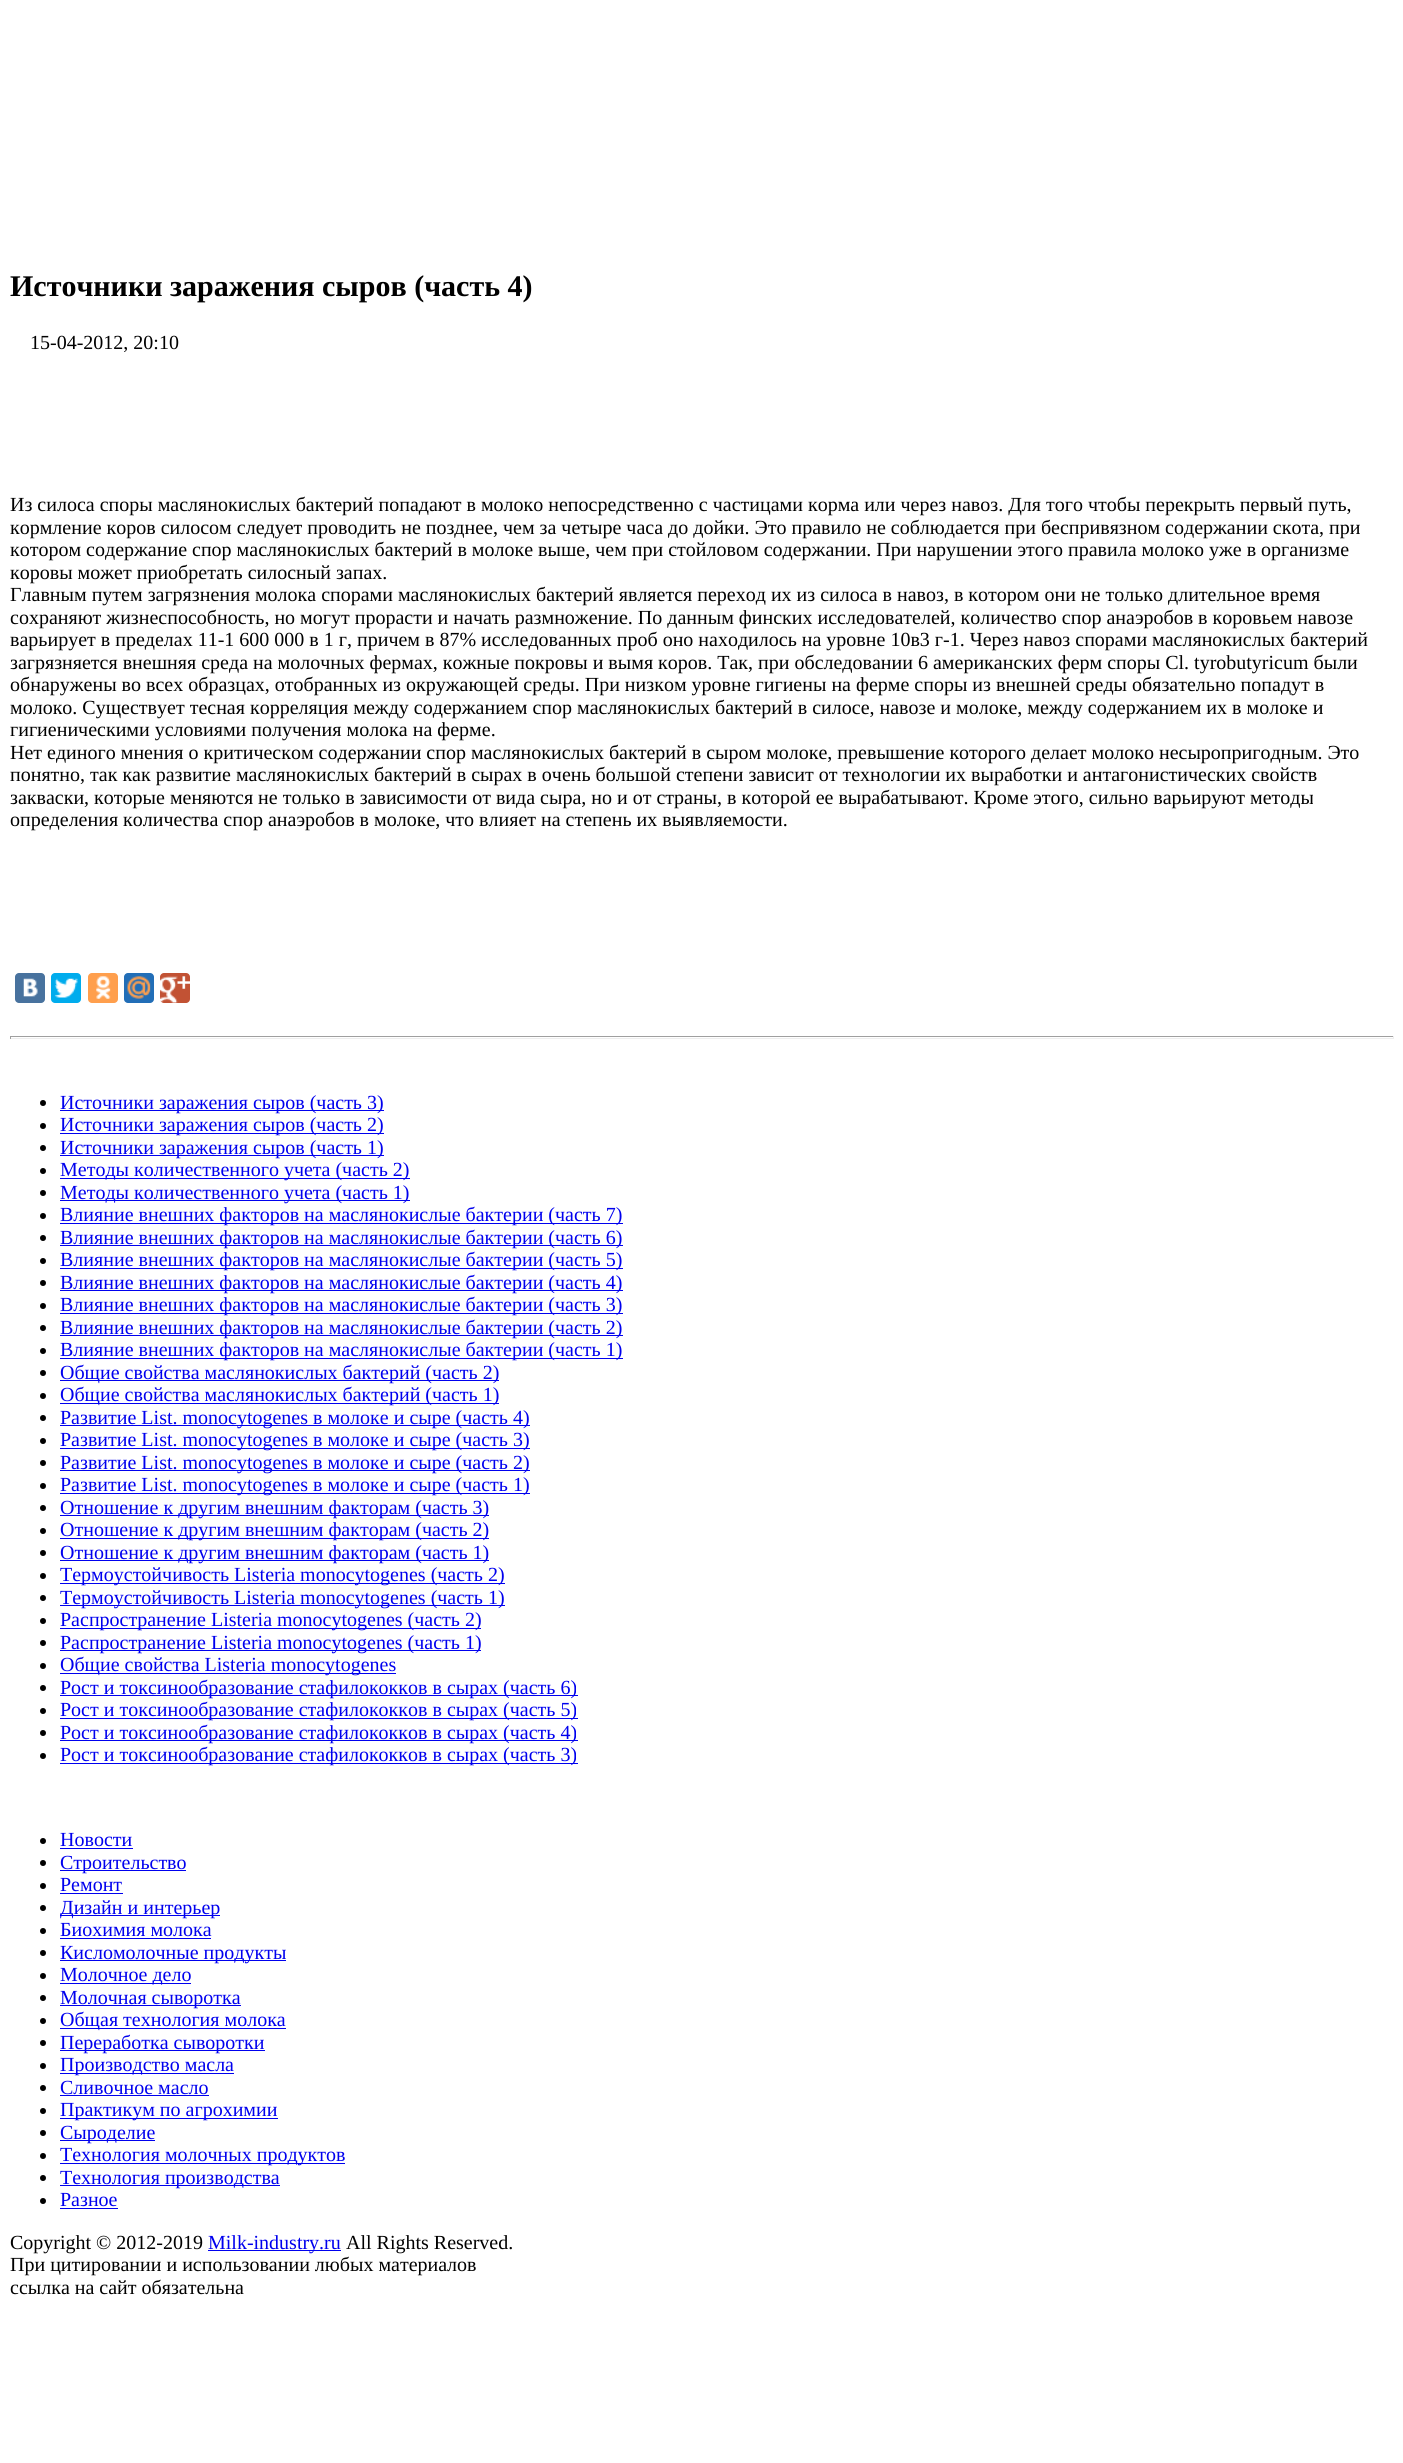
#include <cairo.h>
#include <math.h>
#include <stddef.h>

typedef struct { double x, y; const char *s; } line_t;
typedef struct { double x, y, w, h; unsigned color; } box_t;

static void ink(cairo_t *ctx, unsigned color) {
    cairo_set_source_rgb(ctx, (color >> 16) / 255.0, (color >> 8 & 255) / 255.0, (color & 255) / 255.0);
}

static void round_path(cairo_t *ctx, double x, double y, double w, double h, double r) {
    cairo_new_sub_path(ctx);
    cairo_arc(ctx, x + w - r, y + h - r, r, 0, M_PI / 2);
    cairo_arc(ctx, x + r, y + h - r, r, M_PI / 2, M_PI);
    cairo_arc(ctx, x + r, y + r, r, M_PI, 1.5 * M_PI);
    cairo_arc(ctx, x + w - r, y + r, r, 1.5 * M_PI, 2 * M_PI);
    cairo_close_path(ctx);
}

static void paste(cairo_t *ctx, const char *path, double x, double y, double w, double h) {
    cairo_surface_t *image = cairo_image_surface_create_from_png(path);
    cairo_save(ctx);
    cairo_set_source_surface(ctx, image, x, y);
    cairo_rectangle(ctx, x, y, w, h);
    cairo_fill(ctx);
    cairo_restore(ctx);
    cairo_surface_destroy(image);
}

int main(void) {
    cairo_surface_t *surface = cairo_image_surface_create(CAIRO_FORMAT_RGB24, 1403, 2463);
    cairo_t *ctx = cairo_create(surface);
    cairo_font_options_t *options = cairo_font_options_create();
    cairo_font_options_set_hint_metrics(options, CAIRO_HINT_METRICS_OFF);
    cairo_font_options_set_hint_style(options, CAIRO_HINT_STYLE_NONE);
    cairo_set_font_options(ctx, options);
    cairo_set_miter_limit(ctx, 4);
    ink(ctx, 0xFFFFFF);
    cairo_paint(ctx);
    cairo_select_font_face(ctx, "Liberation Serif", CAIRO_FONT_SLANT_NORMAL, CAIRO_FONT_WEIGHT_BOLD);
    cairo_set_font_size(ctx, 30);
    ink(ctx, 0x000000);
    cairo_move_to(ctx, 10, 296);
    cairo_show_text(ctx, "Источники заражения сыров (часть 4)");
    cairo_select_font_face(ctx, "Liberation Serif", CAIRO_FONT_SLANT_NORMAL, CAIRO_FONT_WEIGHT_NORMAL);
    cairo_set_font_size(ctx, 20);
    {
        static const line_t items[] = {
            {30, 349, "15-04-2012, 20:10"},
            {10, 511, "Из силоса споры маслянокислых бактерий попадают в молоко непосредственно с частицами корма или через навоз. Для того чтобы перекрыть первый путь,"},
            {10, 534, "кормление коров силосом следует проводить не позднее, чем за четыре часа до дойки. Это правило не соблюдается при беспривязном содержании скота, при"},
            {10, 556, "котором содержание спор маслянокислых бактерий в молоке выше, чем при стойловом содержании. При нарушении этого правила молоко уже в организме"},
            {10, 579, "коровы может приобретать силосный запах."},
            {10, 601, "Главным путем загрязнения молока спорами маслянокислых бактерий является переход их из силоса в навоз, в котором они не только длительное время"},
            {10, 624, "сохраняют жизнеспособность, но могут прорасти и начать размножение. По данным финских исследователей, количество спор анаэробов в коровьем навозе"},
            {10, 646, "варьирует в пределах 11-1 600 000 в 1 г, причем в 87% исследованных проб оно находилось на уровне 10в3 г-1. Через навоз спорами маслянокислых бактерий"},
            {10, 669, "загрязняется внешняя среда на молочных фермах, кожные покровы и вымя коров. Так, при обследовании 6 американских ферм споры Cl. tyrobutyricum были"},
            {10, 691, "обнаружены во всех образцах, отобранных из окружающей среды. При низком уровне гигиены на ферме споры из внешней среды обязательно попадут в"},
            {10, 714, "молоко. Существует тесная корреляция между содержанием спор маслянокислых бактерий в силосе, навозе и молоке, между содержанием их в молоке и"},
            {10, 736, "гигиеническими условиями получения молока на ферме."},
            {10, 759, "Нет единого мнения о критическом содержании спор маслянокислых бактерий в сыром молоке, превышение которого делает молоко несыропригодным. Это"},
            {10, 781, "понятно, так как развитие маслянокислых бактерий в сырах в очень большой степени зависит от технологии их выработки и антагонистических свойств"},
            {10, 804, "закваски, которые меняются не только в зависимости от вида сыра, но и от страны, в которой ее вырабатывают. Кроме этого, сильно варьируют методы"},
            {10, 826, "определения количества спор анаэробов в молоке, что влияет на степень их выявляемости."},
        };
        for (size_t i = 0; i < sizeof items / sizeof *items; i++) {
            cairo_move_to(ctx, items[i].x, items[i].y);
            cairo_show_text(ctx, items[i].s);
        }
    }
    ink(ctx, 0x48729E);
    round_path(ctx, 15, 973, 30, 30, 4);
    cairo_fill(ctx);
    paste(ctx, "media/1.png", 23, 978, 15, 19);
    ink(ctx, 0x00ACED);
    round_path(ctx, 51, 973, 30, 30, 4);
    cairo_fill(ctx);
    paste(ctx, "media/2.png", 54, 978, 24, 20);
    ink(ctx, 0xFF9F4D);
    round_path(ctx, 88, 973, 30, 30, 4);
    cairo_fill(ctx);
    paste(ctx, "media/3.png", 96, 976, 15, 23);
    ink(ctx, 0x226EB7);
    round_path(ctx, 124, 973, 30, 30, 4);
    cairo_fill(ctx);
    paste(ctx, "media/4.png", 127, 976, 24, 23);
    ink(ctx, 0xC25234);
    round_path(ctx, 160, 973, 30, 30, 4);
    cairo_fill(ctx);
    paste(ctx, "media/5.png", 160, 976, 30, 27);
    {
        static const box_t items[] = {
            {10, 1036, 1384, 1, 0x9F9F9F},
            {1393, 1036, 1, 3, 0xEEEEEE},
            {10, 1038, 1384, 1, 0xEEEEEE},
            {10, 1036, 1, 3, 0x9F9F9F},
        };
        for (size_t i = 0; i < sizeof items / sizeof *items; i++) {
            ink(ctx, items[i].color);
            cairo_rectangle(ctx, items[i].x, items[i].y, items[i].w, items[i].h);
            cairo_fill(ctx);
        }
    }
    ink(ctx, 0x000000);
    cairo_arc(ctx, 43, 1103, 3, 0, 2 * M_PI);
    cairo_fill(ctx);
    ink(ctx, 0x0000EE);
    cairo_rectangle(ctx, 60, 1110, 324, 1);
    cairo_fill(ctx);
    cairo_move_to(ctx, 60, 1109);
    cairo_show_text(ctx, "Источники заражения сыров (часть 3)");
    ink(ctx, 0x000000);
    cairo_new_path(ctx);
    cairo_arc(ctx, 43, 1126, 3, 0, 2 * M_PI);
    cairo_fill(ctx);
    ink(ctx, 0x0000EE);
    cairo_rectangle(ctx, 60, 1133, 324, 1);
    cairo_fill(ctx);
    cairo_move_to(ctx, 60, 1131);
    cairo_show_text(ctx, "Источники заражения сыров (часть 2)");
    ink(ctx, 0x000000);
    cairo_new_path(ctx);
    cairo_arc(ctx, 43, 1148, 3, 0, 2 * M_PI);
    cairo_fill(ctx);
    ink(ctx, 0x0000EE);
    cairo_rectangle(ctx, 60, 1155, 324, 1);
    cairo_fill(ctx);
    cairo_move_to(ctx, 60, 1154);
    cairo_show_text(ctx, "Источники заражения сыров (часть 1)");
    ink(ctx, 0x000000);
    cairo_new_path(ctx);
    cairo_arc(ctx, 43, 1171, 3, 0, 2 * M_PI);
    cairo_fill(ctx);
    ink(ctx, 0x0000EE);
    cairo_rectangle(ctx, 60, 1178, 350, 1);
    cairo_fill(ctx);
    cairo_move_to(ctx, 60, 1176);
    cairo_show_text(ctx, "Методы количественного учета (часть 2)");
    ink(ctx, 0x000000);
    cairo_new_path(ctx);
    cairo_arc(ctx, 43, 1193, 3, 0, 2 * M_PI);
    cairo_fill(ctx);
    ink(ctx, 0x0000EE);
    cairo_rectangle(ctx, 60, 1200, 350, 1);
    cairo_fill(ctx);
    cairo_move_to(ctx, 60, 1199);
    cairo_show_text(ctx, "Методы количественного учета (часть 1)");
    ink(ctx, 0x000000);
    cairo_new_path(ctx);
    cairo_arc(ctx, 43, 1216, 3, 0, 2 * M_PI);
    cairo_fill(ctx);
    ink(ctx, 0x0000EE);
    cairo_rectangle(ctx, 60, 1223, 563, 1);
    cairo_fill(ctx);
    cairo_move_to(ctx, 60, 1221);
    cairo_show_text(ctx, "Влияние внешних факторов на маслянокислые бактерии (часть 7)");
    ink(ctx, 0x000000);
    cairo_new_path(ctx);
    cairo_arc(ctx, 43, 1238, 3, 0, 2 * M_PI);
    cairo_fill(ctx);
    ink(ctx, 0x0000EE);
    cairo_rectangle(ctx, 60, 1245, 563, 1);
    cairo_fill(ctx);
    cairo_move_to(ctx, 60, 1244);
    cairo_show_text(ctx, "Влияние внешних факторов на маслянокислые бактерии (часть 6)");
    ink(ctx, 0x000000);
    cairo_new_path(ctx);
    cairo_arc(ctx, 43, 1261, 3, 0, 2 * M_PI);
    cairo_fill(ctx);
    ink(ctx, 0x0000EE);
    cairo_rectangle(ctx, 60, 1268, 563, 1);
    cairo_fill(ctx);
    cairo_move_to(ctx, 60, 1266);
    cairo_show_text(ctx, "Влияние внешних факторов на маслянокислые бактерии (часть 5)");
    ink(ctx, 0x000000);
    cairo_new_path(ctx);
    cairo_arc(ctx, 43, 1283, 3, 0, 2 * M_PI);
    cairo_fill(ctx);
    ink(ctx, 0x0000EE);
    cairo_rectangle(ctx, 60, 1290, 563, 1);
    cairo_fill(ctx);
    cairo_move_to(ctx, 60, 1289);
    cairo_show_text(ctx, "Влияние внешних факторов на маслянокислые бактерии (часть 4)");
    ink(ctx, 0x000000);
    cairo_new_path(ctx);
    cairo_arc(ctx, 43, 1306, 3, 0, 2 * M_PI);
    cairo_fill(ctx);
    ink(ctx, 0x0000EE);
    cairo_rectangle(ctx, 60, 1313, 563, 1);
    cairo_fill(ctx);
    cairo_move_to(ctx, 60, 1311);
    cairo_show_text(ctx, "Влияние внешних факторов на маслянокислые бактерии (часть 3)");
    ink(ctx, 0x000000);
    cairo_new_path(ctx);
    cairo_arc(ctx, 43, 1328, 3, 0, 2 * M_PI);
    cairo_fill(ctx);
    ink(ctx, 0x0000EE);
    cairo_rectangle(ctx, 60, 1335, 563, 1);
    cairo_fill(ctx);
    cairo_move_to(ctx, 60, 1334);
    cairo_show_text(ctx, "Влияние внешних факторов на маслянокислые бактерии (часть 2)");
    ink(ctx, 0x000000);
    cairo_new_path(ctx);
    cairo_arc(ctx, 43, 1351, 3, 0, 2 * M_PI);
    cairo_fill(ctx);
    ink(ctx, 0x0000EE);
    cairo_rectangle(ctx, 60, 1358, 563, 1);
    cairo_fill(ctx);
    cairo_move_to(ctx, 60, 1356);
    cairo_show_text(ctx, "Влияние внешних факторов на маслянокислые бактерии (часть 1)");
    ink(ctx, 0x000000);
    cairo_new_path(ctx);
    cairo_arc(ctx, 43, 1373, 3, 0, 2 * M_PI);
    cairo_fill(ctx);
    ink(ctx, 0x0000EE);
    cairo_rectangle(ctx, 60, 1380, 439, 1);
    cairo_fill(ctx);
    cairo_move_to(ctx, 60, 1379);
    cairo_show_text(ctx, "Общие свойства маслянокислых бактерий (часть 2)");
    ink(ctx, 0x000000);
    cairo_new_path(ctx);
    cairo_arc(ctx, 43, 1396, 3, 0, 2 * M_PI);
    cairo_fill(ctx);
    ink(ctx, 0x0000EE);
    cairo_rectangle(ctx, 60, 1403, 439, 1);
    cairo_fill(ctx);
    cairo_move_to(ctx, 60, 1401);
    cairo_show_text(ctx, "Общие свойства маслянокислых бактерий (часть 1)");
    ink(ctx, 0x000000);
    cairo_new_path(ctx);
    cairo_arc(ctx, 43, 1418, 3, 0, 2 * M_PI);
    cairo_fill(ctx);
    ink(ctx, 0x0000EE);
    cairo_rectangle(ctx, 60, 1425, 470, 1);
    cairo_fill(ctx);
    cairo_move_to(ctx, 60, 1424);
    cairo_show_text(ctx, "Развитие List. monocytogenes в молоке и сыре (часть 4)");
    ink(ctx, 0x000000);
    cairo_new_path(ctx);
    cairo_arc(ctx, 43, 1441, 3, 0, 2 * M_PI);
    cairo_fill(ctx);
    ink(ctx, 0x0000EE);
    cairo_rectangle(ctx, 60, 1448, 470, 1);
    cairo_fill(ctx);
    cairo_move_to(ctx, 60, 1446);
    cairo_show_text(ctx, "Развитие List. monocytogenes в молоке и сыре (часть 3)");
    ink(ctx, 0x000000);
    cairo_new_path(ctx);
    cairo_arc(ctx, 43, 1463, 3, 0, 2 * M_PI);
    cairo_fill(ctx);
    ink(ctx, 0x0000EE);
    cairo_rectangle(ctx, 60, 1470, 470, 1);
    cairo_fill(ctx);
    cairo_move_to(ctx, 60, 1469);
    cairo_show_text(ctx, "Развитие List. monocytogenes в молоке и сыре (часть 2)");
    ink(ctx, 0x000000);
    cairo_new_path(ctx);
    cairo_arc(ctx, 43, 1486, 3, 0, 2 * M_PI);
    cairo_fill(ctx);
    ink(ctx, 0x0000EE);
    cairo_rectangle(ctx, 60, 1493, 470, 1);
    cairo_fill(ctx);
    cairo_move_to(ctx, 60, 1491);
    cairo_show_text(ctx, "Развитие List. monocytogenes в молоке и сыре (часть 1)");
    ink(ctx, 0x000000);
    cairo_new_path(ctx);
    cairo_arc(ctx, 43, 1508, 3, 0, 2 * M_PI);
    cairo_fill(ctx);
    ink(ctx, 0x0000EE);
    cairo_rectangle(ctx, 60, 1515, 429, 1);
    cairo_fill(ctx);
    cairo_move_to(ctx, 60, 1514);
    cairo_show_text(ctx, "Отношение к другим внешним факторам (часть 3)");
    ink(ctx, 0x000000);
    cairo_new_path(ctx);
    cairo_arc(ctx, 43, 1531, 3, 0, 2 * M_PI);
    cairo_fill(ctx);
    ink(ctx, 0x0000EE);
    cairo_rectangle(ctx, 60, 1538, 429, 1);
    cairo_fill(ctx);
    cairo_move_to(ctx, 60, 1536);
    cairo_show_text(ctx, "Отношение к другим внешним факторам (часть 2)");
    ink(ctx, 0x000000);
    cairo_new_path(ctx);
    cairo_arc(ctx, 43, 1553, 3, 0, 2 * M_PI);
    cairo_fill(ctx);
    ink(ctx, 0x0000EE);
    cairo_rectangle(ctx, 60, 1560, 429, 1);
    cairo_fill(ctx);
    cairo_move_to(ctx, 60, 1559);
    cairo_show_text(ctx, "Отношение к другим внешним факторам (часть 1)");
    ink(ctx, 0x000000);
    cairo_new_path(ctx);
    cairo_arc(ctx, 43, 1576, 3, 0, 2 * M_PI);
    cairo_fill(ctx);
    ink(ctx, 0x0000EE);
    cairo_rectangle(ctx, 60, 1583, 445, 1);
    cairo_fill(ctx);
    cairo_move_to(ctx, 60, 1581);
    cairo_show_text(ctx, "Термоустойчивость Listeria monocytogenes (часть 2)");
    ink(ctx, 0x000000);
    cairo_new_path(ctx);
    cairo_arc(ctx, 43, 1598, 3, 0, 2 * M_PI);
    cairo_fill(ctx);
    ink(ctx, 0x0000EE);
    cairo_rectangle(ctx, 60, 1605, 445, 1);
    cairo_fill(ctx);
    cairo_move_to(ctx, 60, 1604);
    cairo_show_text(ctx, "Термоустойчивость Listeria monocytogenes (часть 1)");
    ink(ctx, 0x000000);
    cairo_new_path(ctx);
    cairo_arc(ctx, 43, 1621, 3, 0, 2 * M_PI);
    cairo_fill(ctx);
    ink(ctx, 0x0000EE);
    cairo_rectangle(ctx, 60, 1628, 421, 1);
    cairo_fill(ctx);
    cairo_move_to(ctx, 60, 1626);
    cairo_show_text(ctx, "Распространение Listeria monocytogenes (часть 2)");
    ink(ctx, 0x000000);
    cairo_new_path(ctx);
    cairo_arc(ctx, 43, 1643, 3, 0, 2 * M_PI);
    cairo_fill(ctx);
    ink(ctx, 0x0000EE);
    cairo_rectangle(ctx, 60, 1650, 421, 1);
    cairo_fill(ctx);
    cairo_move_to(ctx, 60, 1649);
    cairo_show_text(ctx, "Распространение Listeria monocytogenes (часть 1)");
    ink(ctx, 0x000000);
    cairo_new_path(ctx);
    cairo_arc(ctx, 43, 1666, 3, 0, 2 * M_PI);
    cairo_fill(ctx);
    ink(ctx, 0x0000EE);
    cairo_rectangle(ctx, 60, 1673, 336, 1);
    cairo_fill(ctx);
    cairo_move_to(ctx, 60, 1671);
    cairo_show_text(ctx, "Общие свойства Listeria monocytogenes");
    ink(ctx, 0x000000);
    cairo_new_path(ctx);
    cairo_arc(ctx, 43, 1688, 3, 0, 2 * M_PI);
    cairo_fill(ctx);
    ink(ctx, 0x0000EE);
    cairo_rectangle(ctx, 60, 1695, 518, 1);
    cairo_fill(ctx);
    cairo_move_to(ctx, 60, 1694);
    cairo_show_text(ctx, "Рост и токсинообразование стафилококков в сырах (часть 6)");
    ink(ctx, 0x000000);
    cairo_new_path(ctx);
    cairo_arc(ctx, 43, 1711, 3, 0, 2 * M_PI);
    cairo_fill(ctx);
    ink(ctx, 0x0000EE);
    cairo_rectangle(ctx, 60, 1718, 518, 1);
    cairo_fill(ctx);
    cairo_move_to(ctx, 60, 1716);
    cairo_show_text(ctx, "Рост и токсинообразование стафилококков в сырах (часть 5)");
    ink(ctx, 0x000000);
    cairo_new_path(ctx);
    cairo_arc(ctx, 43, 1733, 3, 0, 2 * M_PI);
    cairo_fill(ctx);
    ink(ctx, 0x0000EE);
    cairo_rectangle(ctx, 60, 1740, 518, 1);
    cairo_fill(ctx);
    cairo_move_to(ctx, 60, 1739);
    cairo_show_text(ctx, "Рост и токсинообразование стафилококков в сырах (часть 4)");
    ink(ctx, 0x000000);
    cairo_new_path(ctx);
    cairo_arc(ctx, 43, 1756, 3, 0, 2 * M_PI);
    cairo_fill(ctx);
    ink(ctx, 0x0000EE);
    cairo_rectangle(ctx, 60, 1763, 518, 1);
    cairo_fill(ctx);
    cairo_move_to(ctx, 60, 1761);
    cairo_show_text(ctx, "Рост и токсинообразование стафилококков в сырах (часть 3)");
    ink(ctx, 0x000000);
    cairo_new_path(ctx);
    cairo_arc(ctx, 43, 1841, 3, 0, 2 * M_PI);
    cairo_fill(ctx);
    ink(ctx, 0x0000EE);
    cairo_move_to(ctx, 60, 1846);
    cairo_show_text(ctx, "Новости");
    cairo_rectangle(ctx, 60, 1848, 73, 1);
    cairo_fill(ctx);
    ink(ctx, 0x000000);
    cairo_arc(ctx, 43, 1863, 3, 0, 2 * M_PI);
    cairo_fill(ctx);
    ink(ctx, 0x0000EE);
    cairo_rectangle(ctx, 60, 1870, 126, 1);
    cairo_fill(ctx);
    cairo_move_to(ctx, 60, 1869);
    cairo_show_text(ctx, "Строительство");
    ink(ctx, 0x000000);
    cairo_new_path(ctx);
    cairo_arc(ctx, 43, 1886, 3, 0, 2 * M_PI);
    cairo_fill(ctx);
    ink(ctx, 0x0000EE);
    cairo_move_to(ctx, 60, 1891);
    cairo_show_text(ctx, "Ремонт");
    cairo_rectangle(ctx, 60, 1893, 63, 1);
    cairo_fill(ctx);
    ink(ctx, 0x000000);
    cairo_arc(ctx, 43, 1908, 3, 0, 2 * M_PI);
    cairo_fill(ctx);
    ink(ctx, 0x0000EE);
    cairo_rectangle(ctx, 60, 1915, 160, 1);
    cairo_fill(ctx);
    cairo_move_to(ctx, 60, 1914);
    cairo_show_text(ctx, "Дизайн и интерьер");
    ink(ctx, 0x000000);
    cairo_new_path(ctx);
    cairo_arc(ctx, 43, 1931, 3, 0, 2 * M_PI);
    cairo_fill(ctx);
    ink(ctx, 0x0000EE);
    cairo_move_to(ctx, 60, 1936);
    cairo_show_text(ctx, "Биохимия молока");
    cairo_rectangle(ctx, 60, 1938, 151, 1);
    cairo_fill(ctx);
    ink(ctx, 0x000000);
    cairo_arc(ctx, 43, 1953, 3, 0, 2 * M_PI);
    cairo_fill(ctx);
    ink(ctx, 0x0000EE);
    cairo_rectangle(ctx, 60, 1960, 226, 1);
    cairo_fill(ctx);
    cairo_move_to(ctx, 60, 1959);
    cairo_show_text(ctx, "Кисломолочные продукты");
    ink(ctx, 0x000000);
    cairo_new_path(ctx);
    cairo_arc(ctx, 43, 1976, 3, 0, 2 * M_PI);
    cairo_fill(ctx);
    ink(ctx, 0x0000EE);
    cairo_rectangle(ctx, 60, 1983, 131, 1);
    cairo_fill(ctx);
    cairo_move_to(ctx, 60, 1981);
    cairo_show_text(ctx, "Молочное дело");
    ink(ctx, 0x000000);
    cairo_new_path(ctx);
    cairo_arc(ctx, 43, 1998, 3, 0, 2 * M_PI);
    cairo_fill(ctx);
    ink(ctx, 0x0000EE);
    cairo_rectangle(ctx, 60, 2005, 181, 1);
    cairo_fill(ctx);
    cairo_move_to(ctx, 60, 2004);
    cairo_show_text(ctx, "Молочная сыворотка");
    ink(ctx, 0x000000);
    cairo_new_path(ctx);
    cairo_arc(ctx, 43, 2021, 3, 0, 2 * M_PI);
    cairo_fill(ctx);
    ink(ctx, 0x0000EE);
    cairo_rectangle(ctx, 60, 2028, 226, 1);
    cairo_fill(ctx);
    cairo_move_to(ctx, 60, 2026);
    cairo_show_text(ctx, "Общая технология молока");
    ink(ctx, 0x000000);
    cairo_new_path(ctx);
    cairo_arc(ctx, 43, 2043, 3, 0, 2 * M_PI);
    cairo_fill(ctx);
    ink(ctx, 0x0000EE);
    cairo_rectangle(ctx, 60, 2050, 205, 1);
    cairo_fill(ctx);
    cairo_move_to(ctx, 60, 2049);
    cairo_show_text(ctx, "Переработка сыворотки");
    ink(ctx, 0x000000);
    cairo_new_path(ctx);
    cairo_arc(ctx, 43, 2066, 3, 0, 2 * M_PI);
    cairo_fill(ctx);
    ink(ctx, 0x0000EE);
    cairo_rectangle(ctx, 60, 2073, 174, 1);
    cairo_fill(ctx);
    cairo_move_to(ctx, 60, 2071);
    cairo_show_text(ctx, "Производство масла");
    ink(ctx, 0x000000);
    cairo_new_path(ctx);
    cairo_arc(ctx, 43, 2088, 3, 0, 2 * M_PI);
    cairo_fill(ctx);
    ink(ctx, 0x0000EE);
    cairo_move_to(ctx, 60, 2094);
    cairo_show_text(ctx, "Сливочное масло");
    cairo_rectangle(ctx, 60, 2095, 149, 1);
    cairo_fill(ctx);
    ink(ctx, 0x000000);
    cairo_arc(ctx, 43, 2111, 3, 0, 2 * M_PI);
    cairo_fill(ctx);
    ink(ctx, 0x0000EE);
    cairo_rectangle(ctx, 60, 2118, 218, 1);
    cairo_fill(ctx);
    cairo_move_to(ctx, 60, 2116);
    cairo_show_text(ctx, "Практикум по агрохимии");
    ink(ctx, 0x000000);
    cairo_new_path(ctx);
    cairo_arc(ctx, 43, 2133, 3, 0, 2 * M_PI);
    cairo_fill(ctx);
    ink(ctx, 0x0000EE);
    cairo_rectangle(ctx, 60, 2140, 95, 1);
    cairo_fill(ctx);
    cairo_move_to(ctx, 60, 2139);
    cairo_show_text(ctx, "Сыроделие");
    ink(ctx, 0x000000);
    cairo_new_path(ctx);
    cairo_arc(ctx, 43, 2156, 3, 0, 2 * M_PI);
    cairo_fill(ctx);
    ink(ctx, 0x0000EE);
    cairo_rectangle(ctx, 60, 2163, 285, 1);
    cairo_fill(ctx);
    cairo_move_to(ctx, 60, 2161);
    cairo_show_text(ctx, "Технология молочных продуктов");
    ink(ctx, 0x000000);
    cairo_new_path(ctx);
    cairo_arc(ctx, 43, 2178, 3, 0, 2 * M_PI);
    cairo_fill(ctx);
    ink(ctx, 0x0000EE);
    cairo_rectangle(ctx, 60, 2185, 220, 1);
    cairo_fill(ctx);
    cairo_move_to(ctx, 60, 2184);
    cairo_show_text(ctx, "Технология производства");
    ink(ctx, 0x000000);
    cairo_new_path(ctx);
    cairo_arc(ctx, 43, 2201, 3, 0, 2 * M_PI);
    cairo_fill(ctx);
    ink(ctx, 0x0000EE);
    cairo_move_to(ctx, 60, 2206);
    cairo_show_text(ctx, "Разное");
    cairo_rectangle(ctx, 60, 2208, 58, 1);
    cairo_fill(ctx);
    ink(ctx, 0x000000);
    cairo_move_to(ctx, 10, 2249);
    cairo_show_text(ctx, "Copyright © 2012-2019");
    ink(ctx, 0x0000EE);
    cairo_rectangle(ctx, 208, 2250, 133, 1);
    cairo_fill(ctx);
    cairo_move_to(ctx, 208, 2249);
    cairo_show_text(ctx, "Milk-industry.ru");
    ink(ctx, 0x000000);
    {
        static const line_t items[] = {
            {346, 2249, "All Rights Reserved."},
            {10, 2271, "При цитировании и использовании любых материалов"},
            {10, 2294, "ссылка на сайт обязательна"},
        };
        for (size_t i = 0; i < sizeof items / sizeof *items; i++) {
            cairo_move_to(ctx, items[i].x, items[i].y);
            cairo_show_text(ctx, items[i].s);
        }
    }
    cairo_surface_write_to_png(surface, "image.png");
    cairo_font_options_destroy(options);
    cairo_destroy(ctx);
    cairo_surface_destroy(surface);
    return 0;
}
